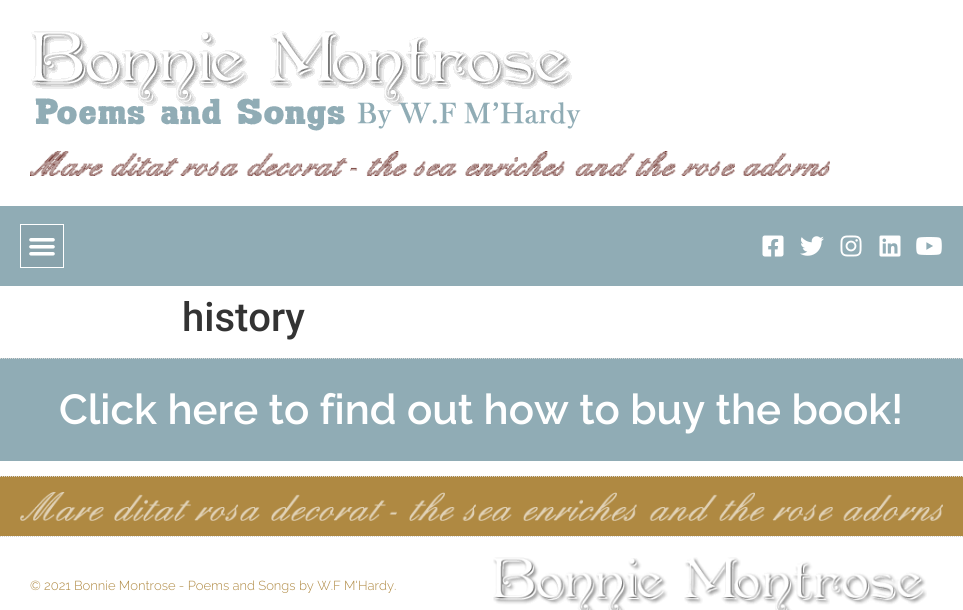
#include <cairo.h>
#include <math.h>
#include <stddef.h>


static void ink(cairo_t *ctx, unsigned color) {
    cairo_set_source_rgb(ctx, (color >> 16) / 255.0, (color >> 8 & 255) / 255.0, (color & 255) / 255.0);
}

static void paste(cairo_t *ctx, const char *path, double x, double y, double w, double h) {
    cairo_surface_t *image = cairo_image_surface_create_from_png(path);
    cairo_save(ctx);
    cairo_set_source_surface(ctx, image, x, y);
    cairo_rectangle(ctx, x, y, w, h);
    cairo_fill(ctx);
    cairo_restore(ctx);
    cairo_surface_destroy(image);
}

int main(void) {
    cairo_surface_t *surface = cairo_image_surface_create(CAIRO_FORMAT_RGB24, 963, 610);
    cairo_t *ctx = cairo_create(surface);
    cairo_font_options_t *options = cairo_font_options_create();
    cairo_font_options_set_hint_metrics(options, CAIRO_HINT_METRICS_OFF);
    cairo_font_options_set_hint_style(options, CAIRO_HINT_STYLE_NONE);
    cairo_set_font_options(ctx, options);
    cairo_set_miter_limit(ctx, 4);
    ink(ctx, 0xFFFFFF);
    cairo_paint(ctx);
    paste(ctx, "media/1.png", 31, 31, 550, 100);
    paste(ctx, "media/2.png", 30, 151, 800, 25);
    ink(ctx, 0x90ACB5);
    cairo_rectangle(ctx, 0, 206, 963, 80);
    cairo_fill(ctx);
    ink(ctx, 0x89A3AC);
    cairo_rectangle(ctx, 20.5, 224.5, 43, 43);
    cairo_fill_preserve(ctx);
    ink(ctx, 0xFFFFFF);
    cairo_set_line_width(ctx, 1);
    cairo_stroke(ctx);
    paste(ctx, "media/3.png", 29, 238, 26, 18);
    paste(ctx, "media/4.png", 762, 235, 22, 22);
    paste(ctx, "media/5.png", 800, 236, 24, 20);
    paste(ctx, "media/6.png", 840, 235, 22, 22);
    paste(ctx, "media/7.png", 879, 235, 22, 22);
    paste(ctx, "media/8.png", 916, 237, 26, 18);
    cairo_select_font_face(ctx, "Roboto Medium", CAIRO_FONT_SLANT_NORMAL, CAIRO_FONT_WEIGHT_NORMAL);
    cairo_set_font_size(ctx, 40);
    ink(ctx, 0x333333);
    cairo_move_to(ctx, 182, 331);
    cairo_show_text(ctx, "history");
    ink(ctx, 0x90ACB5);
    cairo_rectangle(ctx, 0, 358, 963, 103);
    cairo_fill(ctx);
    cairo_new_path(ctx);
    cairo_move_to(ctx, 0, 358.5);
    cairo_line_to(ctx, 963, 358.5);
    ink(ctx, 0xD6D6D6);
    cairo_set_dash(ctx, (double[]){1, 1}, 2, 0);
    cairo_stroke(ctx);
    cairo_select_font_face(ctx, "Raleway SemiBold", CAIRO_FONT_SLANT_NORMAL, CAIRO_FONT_WEIGHT_NORMAL);
    cairo_set_font_size(ctx, 42);
    ink(ctx, 0xFFFFFF);
    cairo_move_to(ctx, 59, 424);
    cairo_show_text(ctx, "Click here to find out how to buy the book!");
    ink(ctx, 0xAF8942);
    cairo_rectangle(ctx, 0, 476, 963, 60);
    cairo_fill(ctx);
    cairo_new_path(ctx);
    cairo_move_to(ctx, 0, 476.5);
    cairo_line_to(ctx, 963, 476.5);
    ink(ctx, 0xD6D6D6);
    cairo_stroke(ctx);
    paste(ctx, "media/9.png", 20, 492, 923, 29);
    cairo_new_path(ctx);
    cairo_move_to(ctx, 0, 536.5);
    cairo_line_to(ctx, 963, 536.5);
    cairo_stroke(ctx);
    cairo_select_font_face(ctx, "Raleway Light", CAIRO_FONT_SLANT_NORMAL, CAIRO_FONT_WEIGHT_NORMAL);
    cairo_set_font_size(ctx, 13);
    ink(ctx, 0xAF8942);
    cairo_move_to(ctx, 30, 590);
    cairo_show_text(ctx, "© 2021 Bonnie Montrose - Poems and Songs by W.F M'Hardy.");
    paste(ctx, "media/10.png", 493, 557, 434, 53);
    cairo_surface_write_to_png(surface, "image.png");
    cairo_font_options_destroy(options);
    cairo_destroy(ctx);
    cairo_surface_destroy(surface);
    return 0;
}
